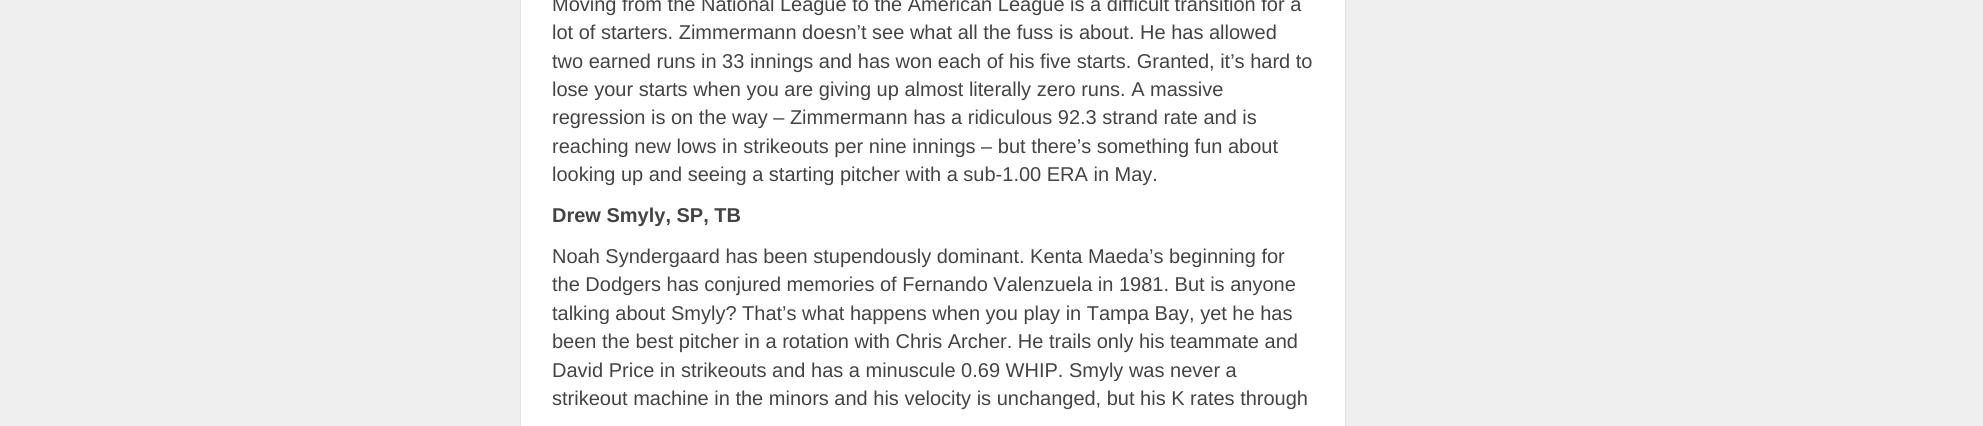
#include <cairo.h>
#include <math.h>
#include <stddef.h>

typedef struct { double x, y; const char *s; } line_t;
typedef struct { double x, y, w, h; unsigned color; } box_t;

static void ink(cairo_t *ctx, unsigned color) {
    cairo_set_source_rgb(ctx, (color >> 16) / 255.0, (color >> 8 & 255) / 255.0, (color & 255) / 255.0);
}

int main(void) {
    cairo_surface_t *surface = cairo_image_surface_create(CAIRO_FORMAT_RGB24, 1983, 426);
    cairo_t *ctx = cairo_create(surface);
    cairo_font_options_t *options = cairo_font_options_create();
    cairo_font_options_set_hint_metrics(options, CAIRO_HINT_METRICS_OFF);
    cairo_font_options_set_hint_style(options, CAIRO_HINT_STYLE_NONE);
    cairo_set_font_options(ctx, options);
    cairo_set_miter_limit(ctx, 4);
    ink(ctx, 0xEFEFEF);
    cairo_paint(ctx);
    {
        static const box_t items[] = {
            {521, 0, 824, 426, 0xFFFFFF},
            {1345, 0, 1, 426, 0xE2E2E2},
            {520, 0, 1, 426, 0xE2E2E2},
        };
        for (size_t i = 0; i < sizeof items / sizeof *items; i++) {
            ink(ctx, items[i].color);
            cairo_rectangle(ctx, items[i].x, items[i].y, items[i].w, items[i].h);
            cairo_fill(ctx);
        }
    }
    cairo_select_font_face(ctx, "Liberation Sans", CAIRO_FONT_SLANT_NORMAL, CAIRO_FONT_WEIGHT_NORMAL);
    cairo_set_font_size(ctx, 20);
    ink(ctx, 0x444444);
    {
        static const line_t items[] = {
            {552, 11, "Moving from the National League to the American League is a difficult transition for a"},
            {552, 39, "lot of starters. Zimmermann doesn’t see what all the fuss is about. He has allowed"},
            {552, 68, "two earned runs in 33 innings and has won each of his five starts. Granted, it’s hard to"},
            {552, 96, "lose your starts when you are giving up almost literally zero runs. A massive"},
            {552, 124, "regression is on the way – Zimmermann has a ridiculous 92.3 strand rate and is"},
            {552, 153, "reaching new lows in strikeouts per nine innings – but there’s something fun about"},
            {552, 181, "looking up and seeing a starting pitcher with a sub-1.00 ERA in May."},
        };
        for (size_t i = 0; i < sizeof items / sizeof *items; i++) {
            cairo_move_to(ctx, items[i].x, items[i].y);
            cairo_show_text(ctx, items[i].s);
        }
    }
    cairo_select_font_face(ctx, "Liberation Sans", CAIRO_FONT_SLANT_NORMAL, CAIRO_FONT_WEIGHT_BOLD);
    cairo_move_to(ctx, 552, 222);
    cairo_show_text(ctx, "Drew Smyly, SP, TB");
    cairo_select_font_face(ctx, "Liberation Sans", CAIRO_FONT_SLANT_NORMAL, CAIRO_FONT_WEIGHT_NORMAL);
    {
        static const line_t items[] = {
            {552, 263, "Noah Syndergaard has been stupendously dominant. Kenta Maeda’s beginning for"},
            {552, 291, "the Dodgers has conjured memories of Fernando Valenzuela in 1981. But is anyone"},
            {552, 320, "talking about Smyly? That’s what happens when you play in Tampa Bay, yet he has"},
            {552, 348, "been the best pitcher in a rotation with Chris Archer. He trails only his teammate and"},
            {552, 377, "David Price in strikeouts and has a minuscule 0.69 WHIP. Smyly was never a"},
            {552, 405, "strikeout machine in the minors and his velocity is unchanged, but his K rates through"},
        };
        for (size_t i = 0; i < sizeof items / sizeof *items; i++) {
            cairo_move_to(ctx, items[i].x, items[i].y);
            cairo_show_text(ctx, items[i].s);
        }
    }
    cairo_surface_write_to_png(surface, "image.png");
    cairo_font_options_destroy(options);
    cairo_destroy(ctx);
    cairo_surface_destroy(surface);
    return 0;
}
